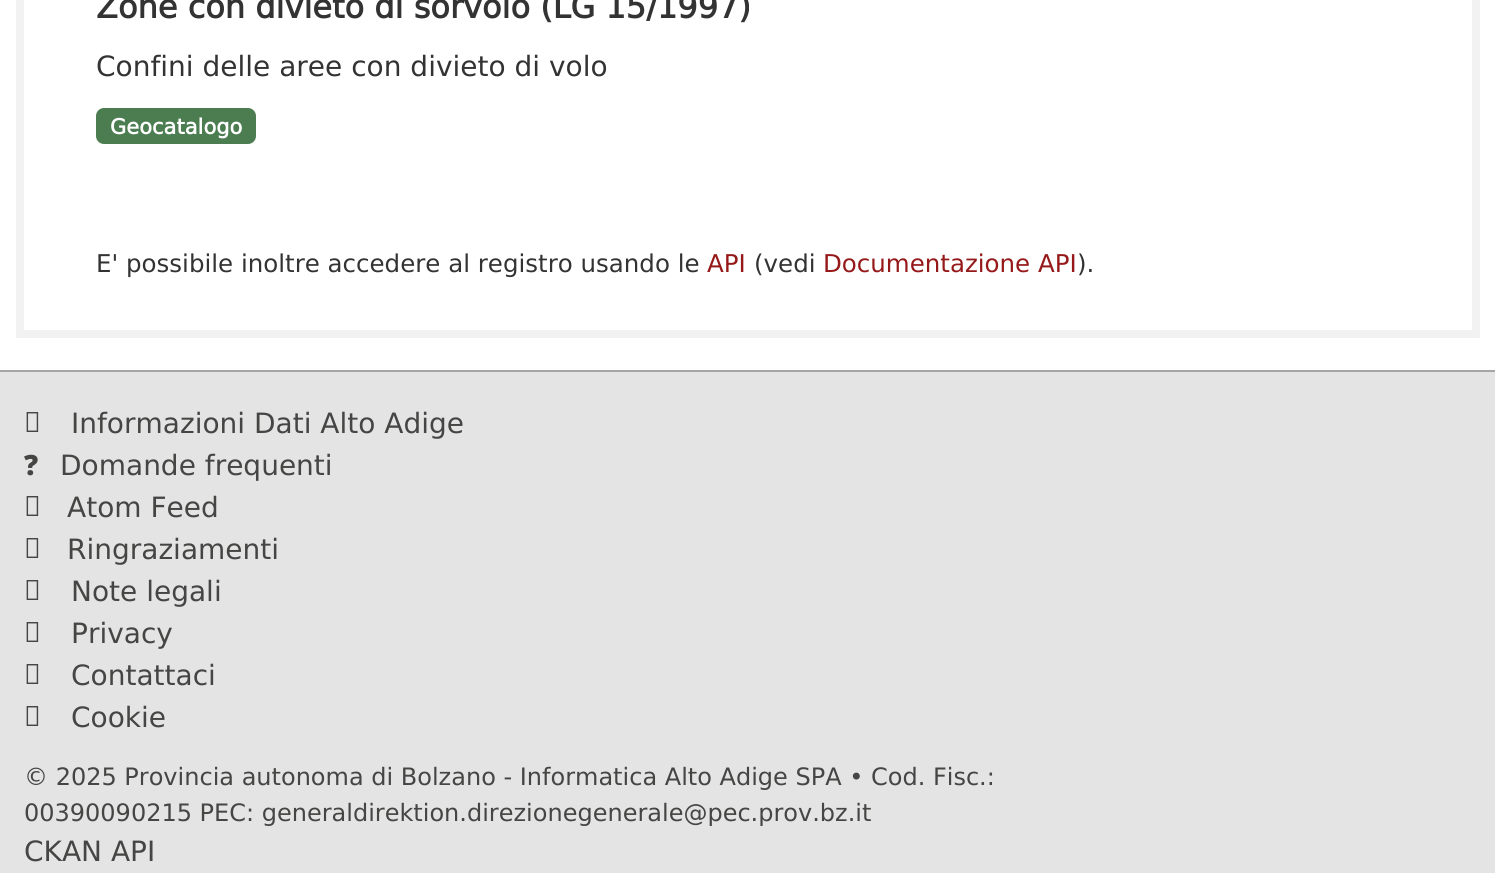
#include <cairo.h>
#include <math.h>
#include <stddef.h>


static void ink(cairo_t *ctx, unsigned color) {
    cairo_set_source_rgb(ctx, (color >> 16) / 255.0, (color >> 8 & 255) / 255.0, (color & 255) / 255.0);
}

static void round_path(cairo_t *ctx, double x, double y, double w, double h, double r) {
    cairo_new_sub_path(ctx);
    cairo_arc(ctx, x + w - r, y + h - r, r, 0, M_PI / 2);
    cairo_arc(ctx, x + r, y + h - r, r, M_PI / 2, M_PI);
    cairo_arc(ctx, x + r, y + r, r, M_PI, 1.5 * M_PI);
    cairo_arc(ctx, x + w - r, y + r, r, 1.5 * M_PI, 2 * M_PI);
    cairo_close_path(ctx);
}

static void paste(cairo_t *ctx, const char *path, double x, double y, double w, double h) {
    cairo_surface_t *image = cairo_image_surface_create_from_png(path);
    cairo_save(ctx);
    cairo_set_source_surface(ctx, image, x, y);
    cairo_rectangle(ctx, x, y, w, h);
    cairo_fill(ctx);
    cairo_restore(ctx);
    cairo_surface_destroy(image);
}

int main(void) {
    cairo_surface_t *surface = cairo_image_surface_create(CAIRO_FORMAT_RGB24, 1495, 873);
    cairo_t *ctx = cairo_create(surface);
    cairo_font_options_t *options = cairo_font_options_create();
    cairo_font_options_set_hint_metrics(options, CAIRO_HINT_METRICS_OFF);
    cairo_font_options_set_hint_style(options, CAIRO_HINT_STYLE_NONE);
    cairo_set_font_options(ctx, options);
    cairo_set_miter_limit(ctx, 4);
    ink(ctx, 0xE4E4E5);
    cairo_paint(ctx);
    ink(ctx, 0xFFFFFF);
    cairo_rectangle(ctx, 0, 0, 1495, 370);
    cairo_fill(ctx);
    cairo_rectangle(ctx, 20, -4, 1456, 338);
    ink(ctx, 0xF2F2F2);
    cairo_set_line_width(ctx, 8);
    cairo_stroke(ctx);
    cairo_select_font_face(ctx, "DejaVu Sans", CAIRO_FONT_SLANT_NORMAL, CAIRO_FONT_WEIGHT_BOLD);
    cairo_set_font_size(ctx, 32);
    ink(ctx, 0x333333);
    cairo_move_to(ctx, 96, 18);
    cairo_show_text(ctx, "Zone con divieto di sorvolo (LG 15/1997)");
    cairo_select_font_face(ctx, "DejaVu Sans", CAIRO_FONT_SLANT_NORMAL, CAIRO_FONT_WEIGHT_NORMAL);
    cairo_set_font_size(ctx, 28);
    cairo_move_to(ctx, 96, 76);
    cairo_show_text(ctx, "Confini delle aree con divieto di volo");
    ink(ctx, 0x4B7D51);
    round_path(ctx, 96, 108, 160, 36, 8);
    cairo_fill(ctx);
    cairo_select_font_face(ctx, "DejaVu Sans", CAIRO_FONT_SLANT_NORMAL, CAIRO_FONT_WEIGHT_BOLD);
    cairo_set_font_size(ctx, 21);
    ink(ctx, 0xFFFFFF);
    cairo_move_to(ctx, 110, 134);
    cairo_show_text(ctx, "Geocatalogo");
    cairo_select_font_face(ctx, "DejaVu Sans", CAIRO_FONT_SLANT_NORMAL, CAIRO_FONT_WEIGHT_NORMAL);
    cairo_set_font_size(ctx, 24.5);
    ink(ctx, 0x333333);
    cairo_move_to(ctx, 96, 272);
    cairo_show_text(ctx, "E' possibile inoltre accedere al registro usando le");
    ink(ctx, 0x96191A);
    cairo_move_to(ctx, 707, 272);
    cairo_show_text(ctx, "API");
    ink(ctx, 0x333333);
    cairo_move_to(ctx, 754, 272);
    cairo_show_text(ctx, "(vedi");
    ink(ctx, 0x96191A);
    cairo_move_to(ctx, 823, 272);
    cairo_show_text(ctx, "Documentazione API");
    ink(ctx, 0x333333);
    cairo_move_to(ctx, 1077, 272);
    cairo_show_text(ctx, ").");
    ink(ctx, 0xA4A5A5);
    cairo_rectangle(ctx, 0, 370, 1495, 2);
    cairo_fill(ctx);
    paste(ctx, "media/1.png", 26, 412, 13, 20);
    cairo_set_font_size(ctx, 28);
    ink(ctx, 0x454544);
    cairo_move_to(ctx, 71, 433);
    cairo_show_text(ctx, "Informazioni Dati Alto Adige");
    cairo_select_font_face(ctx, "Noto Sans Black", CAIRO_FONT_SLANT_NORMAL, CAIRO_FONT_WEIGHT_NORMAL);
    cairo_move_to(ctx, 24, 475);
    cairo_show_text(ctx, "?");
    cairo_select_font_face(ctx, "DejaVu Sans", CAIRO_FONT_SLANT_NORMAL, CAIRO_FONT_WEIGHT_NORMAL);
    cairo_move_to(ctx, 60, 475);
    cairo_show_text(ctx, "Domande frequenti");
    paste(ctx, "media/1.png", 26, 496, 13, 20);
    cairo_move_to(ctx, 67, 517);
    cairo_show_text(ctx, "Atom Feed");
    paste(ctx, "media/1.png", 26, 538, 13, 20);
    cairo_move_to(ctx, 67, 559);
    cairo_show_text(ctx, "Ringraziamenti");
    paste(ctx, "media/1.png", 26, 580, 13, 20);
    cairo_move_to(ctx, 71, 601);
    cairo_show_text(ctx, "Note legali");
    paste(ctx, "media/1.png", 26, 622, 13, 20);
    cairo_move_to(ctx, 71, 643);
    cairo_show_text(ctx, "Privacy");
    paste(ctx, "media/1.png", 26, 664, 13, 20);
    cairo_move_to(ctx, 71, 685);
    cairo_show_text(ctx, "Contattaci");
    paste(ctx, "media/1.png", 26, 706, 13, 20);
    cairo_move_to(ctx, 71, 727);
    cairo_show_text(ctx, "Cookie");
    cairo_set_font_size(ctx, 24);
    cairo_move_to(ctx, 24, 785);
    cairo_show_text(ctx, "© 2025 Provincia autonoma di Bolzano - Informatica Alto Adige SPA • Cod. Fisc.:");
    cairo_move_to(ctx, 24, 821);
    cairo_show_text(ctx, "00390090215 PEC: generaldirektion.direzionegenerale@pec.prov.bz.it");
    cairo_set_font_size(ctx, 28);
    cairo_move_to(ctx, 24, 861);
    cairo_show_text(ctx, "CKAN API");
    cairo_surface_write_to_png(surface, "image.png");
    cairo_font_options_destroy(options);
    cairo_destroy(ctx);
    cairo_surface_destroy(surface);
    return 0;
}
